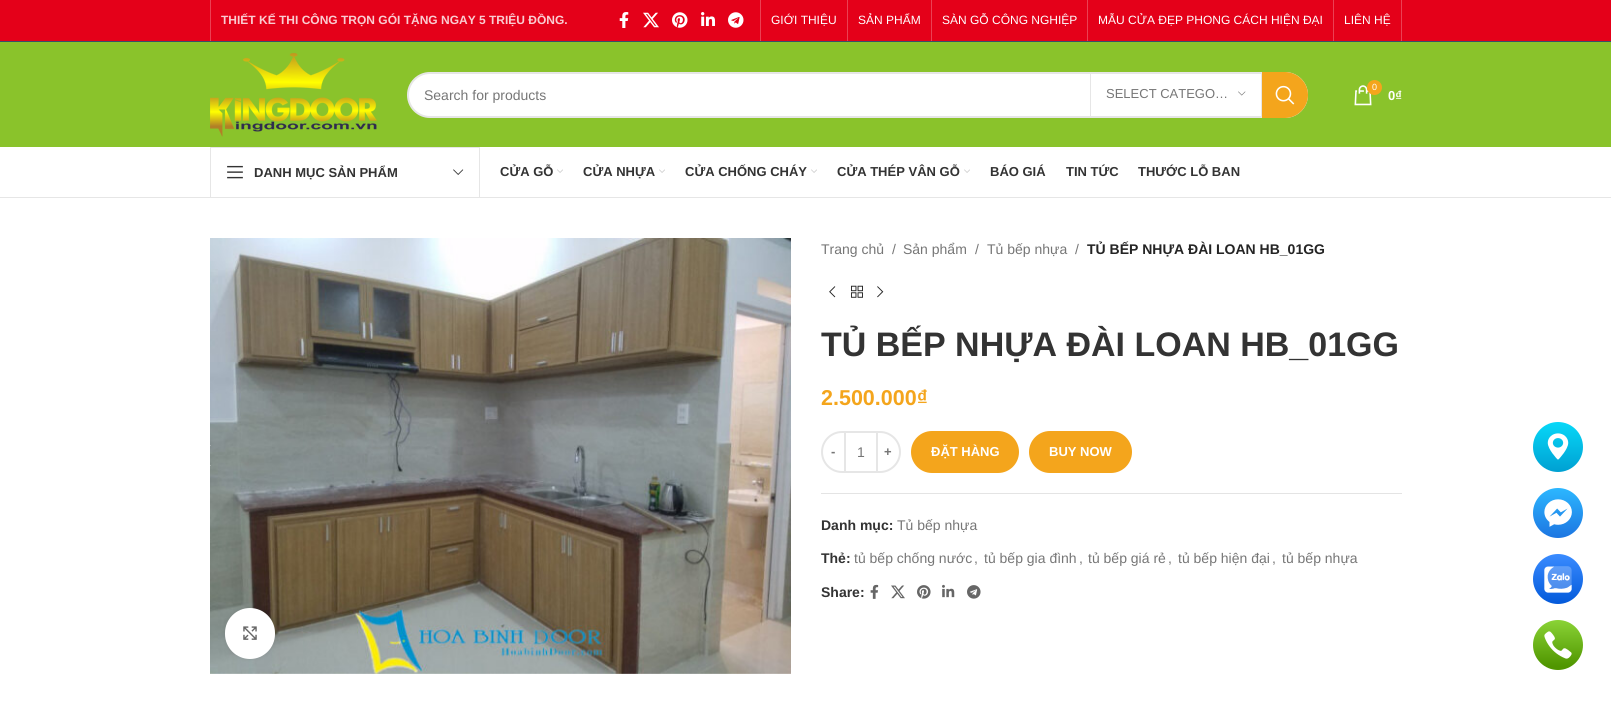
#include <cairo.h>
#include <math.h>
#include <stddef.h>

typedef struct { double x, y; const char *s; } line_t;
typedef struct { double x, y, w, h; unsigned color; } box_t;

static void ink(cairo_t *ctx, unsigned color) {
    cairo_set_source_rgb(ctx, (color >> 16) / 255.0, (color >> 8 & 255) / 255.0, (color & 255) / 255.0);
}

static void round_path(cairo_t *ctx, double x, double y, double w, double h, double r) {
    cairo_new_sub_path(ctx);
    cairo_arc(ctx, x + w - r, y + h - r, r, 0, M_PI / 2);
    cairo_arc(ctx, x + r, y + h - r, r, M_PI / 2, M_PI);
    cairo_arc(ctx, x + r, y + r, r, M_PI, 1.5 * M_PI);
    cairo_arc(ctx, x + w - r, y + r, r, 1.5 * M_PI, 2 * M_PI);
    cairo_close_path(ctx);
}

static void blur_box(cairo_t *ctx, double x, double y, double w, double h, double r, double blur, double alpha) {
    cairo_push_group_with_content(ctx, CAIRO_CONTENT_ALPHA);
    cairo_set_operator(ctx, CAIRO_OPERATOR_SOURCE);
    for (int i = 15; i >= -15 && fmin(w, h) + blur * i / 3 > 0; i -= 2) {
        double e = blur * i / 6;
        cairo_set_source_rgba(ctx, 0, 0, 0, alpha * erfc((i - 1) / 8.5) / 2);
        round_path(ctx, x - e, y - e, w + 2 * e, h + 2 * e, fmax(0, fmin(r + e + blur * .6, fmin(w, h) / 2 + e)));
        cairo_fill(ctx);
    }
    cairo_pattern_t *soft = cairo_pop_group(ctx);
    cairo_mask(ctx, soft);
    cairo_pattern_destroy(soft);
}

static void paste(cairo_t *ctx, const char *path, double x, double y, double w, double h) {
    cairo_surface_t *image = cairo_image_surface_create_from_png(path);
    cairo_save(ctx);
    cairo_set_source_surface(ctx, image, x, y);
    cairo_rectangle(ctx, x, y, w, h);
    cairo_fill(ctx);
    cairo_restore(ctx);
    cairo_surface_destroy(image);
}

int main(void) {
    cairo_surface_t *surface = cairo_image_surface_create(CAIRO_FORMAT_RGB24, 1611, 702);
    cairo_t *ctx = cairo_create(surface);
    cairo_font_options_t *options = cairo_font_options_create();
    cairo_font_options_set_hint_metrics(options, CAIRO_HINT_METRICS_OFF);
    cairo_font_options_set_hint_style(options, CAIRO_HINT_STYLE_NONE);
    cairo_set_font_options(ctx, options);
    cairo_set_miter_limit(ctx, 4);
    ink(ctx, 0xFFFFFF);
    cairo_paint(ctx);
    {
        static const box_t items[] = {
            {0, 0, 1611, 41, 0xE40019},
            {0, 41, 1611, 1, 0x3A4D69},
            {210, 0, 1, 41, 0xEB4053},
        };
        for (size_t i = 0; i < sizeof items / sizeof *items; i++) {
            ink(ctx, items[i].color);
            cairo_rectangle(ctx, items[i].x, items[i].y, items[i].w, items[i].h);
            cairo_fill(ctx);
        }
    }
    cairo_select_font_face(ctx, "Liberation Sans", CAIRO_FONT_SLANT_NORMAL, CAIRO_FONT_WEIGHT_BOLD);
    cairo_set_font_size(ctx, 12);
    ink(ctx, 0xFACCD1);
    cairo_move_to(ctx, 221, 24);
    cairo_show_text(ctx, "THIẾT KẾ THI CÔNG TRỌN GÓI TẶNG NGAY 5 TRIỆU ĐỒNG.");
    paste(ctx, "media/1.png", 619, 12, 10, 16);
    paste(ctx, "media/2.png", 643, 12, 16, 16);
    paste(ctx, "media/3.png", 672, 12, 16, 16);
    paste(ctx, "media/4.png", 701, 12, 14, 14);
    paste(ctx, "media/5.png", 728, 12, 16, 16);
    ink(ctx, 0xEB4053);
    cairo_rectangle(ctx, 760, 0, 1, 41);
    cairo_fill(ctx);
    cairo_select_font_face(ctx, "Liberation Sans", CAIRO_FONT_SLANT_NORMAL, CAIRO_FONT_WEIGHT_NORMAL);
    ink(ctx, 0xFFFFFF);
    cairo_move_to(ctx, 771, 24);
    cairo_show_text(ctx, "GIỚI THIỆU");
    ink(ctx, 0xEB4053);
    cairo_rectangle(ctx, 847, 0, 1, 41);
    cairo_fill(ctx);
    ink(ctx, 0xFFFFFF);
    cairo_move_to(ctx, 858, 24);
    cairo_show_text(ctx, "SẢN PHẨM");
    ink(ctx, 0xEB4053);
    cairo_rectangle(ctx, 931, 0, 1, 41);
    cairo_fill(ctx);
    ink(ctx, 0xFFFFFF);
    cairo_move_to(ctx, 942, 24);
    cairo_show_text(ctx, "SÀN GỖ CÔNG NGHIỆP");
    ink(ctx, 0xEB4053);
    cairo_rectangle(ctx, 1087, 0, 1, 41);
    cairo_fill(ctx);
    ink(ctx, 0xFFFFFF);
    cairo_move_to(ctx, 1098, 24);
    cairo_show_text(ctx, "MẪU CỬA ĐẸP PHONG CÁCH HIỆN ĐẠI");
    ink(ctx, 0xEB4053);
    cairo_rectangle(ctx, 1333, 0, 1, 41);
    cairo_fill(ctx);
    ink(ctx, 0xFFFFFF);
    cairo_move_to(ctx, 1344, 24);
    cairo_show_text(ctx, "LIÊN HỆ");
    ink(ctx, 0xEB4053);
    cairo_rectangle(ctx, 1401, 0, 1, 41);
    cairo_fill(ctx);
    ink(ctx, 0x8AC32B);
    cairo_rectangle(ctx, 0, 42, 1611, 105);
    cairo_fill(ctx);
    paste(ctx, "media/6.png", 210, 53, 167, 84);
    ink(ctx, 0xFFFFFF);
    round_path(ctx, 407, 72, 901, 46, 23);
    cairo_fill(ctx);
    round_path(ctx, 408, 73, 899, 44, 22);
    cairo_set_source_rgba(ctx, 0, 0, 0, 0.1);
    cairo_stroke(ctx);
    cairo_set_font_size(ctx, 14);
    ink(ctx, 0x767676);
    cairo_move_to(ctx, 424, 100);
    cairo_show_text(ctx, "Search for products");
    ink(ctx, 0xE6E6E6);
    cairo_rectangle(ctx, 1261, 74, 1, 42);
    cairo_fill(ctx);
    cairo_rectangle(ctx, 1090, 74, 1, 42);
    cairo_fill(ctx);
    cairo_set_font_size(ctx, 13);
    ink(ctx, 0x767676);
    cairo_move_to(ctx, 1106, 98);
    cairo_show_text(ctx, "SELECT CATEGO…");
    paste(ctx, "media/7.png", 1238, 91, 8, 5);
    ink(ctx, 0xF4A51C);
    cairo_new_path(ctx);
    cairo_move_to(ctx, 1262, 72);
    cairo_line_to(ctx, 1285, 72);
    cairo_curve_to(ctx, 1297.5, 72, 1308, 82.5, 1308, 95);
    cairo_curve_to(ctx, 1308, 107.5, 1297.5, 118, 1285, 118);
    cairo_line_to(ctx, 1262, 118);
    cairo_close_path(ctx);
    cairo_fill(ctx);
    paste(ctx, "media/8.png", 1275, 85, 20, 20);
    paste(ctx, "media/9.png", 1354, 85, 18, 21);
    cairo_arc(ctx, 1374.5, 87.5, 7.5, 0, 2 * M_PI);
    cairo_fill(ctx);
    cairo_set_font_size(ctx, 9);
    ink(ctx, 0xFFFFFF);
    cairo_move_to(ctx, 1372, 90);
    cairo_show_text(ctx, "0");
    cairo_select_font_face(ctx, "Liberation Sans", CAIRO_FONT_SLANT_NORMAL, CAIRO_FONT_WEIGHT_BOLD);
    cairo_set_font_size(ctx, 13);
    cairo_move_to(ctx, 1388, 100);
    cairo_show_text(ctx, "0₫");
    ink(ctx, 0xE6E6E6);
    cairo_rectangle(ctx, 0, 197, 1611, 1);
    cairo_fill(ctx);
    cairo_rectangle(ctx, 210.5, 147.5, 269, 50);
    cairo_set_line_width(ctx, 1);
    cairo_stroke(ctx);
    paste(ctx, "media/10.png", 227, 165, 16, 14);
    ink(ctx, 0x333333);
    cairo_move_to(ctx, 254, 177);
    cairo_show_text(ctx, "DANH MỤC SẢN PHẨM");
    paste(ctx, "media/11.png", 453, 169, 11, 6);
    cairo_move_to(ctx, 500, 176);
    cairo_show_text(ctx, "CỬA GỖ");
    paste(ctx, "media/12.png", 557, 169, 6, 4);
    cairo_move_to(ctx, 583, 176);
    cairo_show_text(ctx, "CỬA NHỰA");
    paste(ctx, "media/12.png", 659, 169, 6, 4);
    cairo_move_to(ctx, 685, 176);
    cairo_show_text(ctx, "CỬA CHỐNG CHÁY");
    paste(ctx, "media/12.png", 811, 169, 6, 4);
    cairo_move_to(ctx, 837, 176);
    cairo_show_text(ctx, "CỬA THÉP VÂN GỖ");
    paste(ctx, "media/12.png", 964, 169, 6, 4);
    {
        static const line_t items[] = {
            {990, 176, "BÁO GIÁ"},
            {1066, 176, "TIN TỨC"},
            {1138, 176, "THƯỚC LỖ BAN"},
        };
        for (size_t i = 0; i < sizeof items / sizeof *items; i++) {
            cairo_move_to(ctx, items[i].x, items[i].y);
            cairo_show_text(ctx, items[i].s);
        }
    }
    paste(ctx, "media/13.png", 210, 238, 581, 436);
    ink(ctx, 0xFFFFFF);
    cairo_new_path(ctx);
    cairo_move_to(ctx, 210.5, 445.5);
    cairo_line_to(ctx, 209.5, 444.5);
    cairo_line_to(ctx, 198, 455.5);
    cairo_line_to(ctx, 209.5, 466.5);
    cairo_line_to(ctx, 210.5, 465.5);
    cairo_line_to(ctx, 201, 455.5);
    cairo_close_path(ctx);
    cairo_fill(ctx);
    ink(ctx, 0x000000);
    blur_box(ctx, 225, 608, 50, 51, 25, 2.5, 0.08);
    ink(ctx, 0xFFFFFF);
    round_path(ctx, 225, 608, 50, 51, 25);
    cairo_fill(ctx);
    paste(ctx, "media/14.png", 243, 626, 14, 14);
    cairo_select_font_face(ctx, "Liberation Sans", CAIRO_FONT_SLANT_NORMAL, CAIRO_FONT_WEIGHT_NORMAL);
    cairo_set_font_size(ctx, 14);
    ink(ctx, 0x767676);
    {
        static const line_t items[] = {
            {821, 254, "Trang chủ"},
            {892, 254, "/"},
            {903, 254, "Sản phẩm"},
            {975, 254, "/"},
            {987, 254, "Tủ bếp nhựa"},
            {1075, 254, "/"},
        };
        for (size_t i = 0; i < sizeof items / sizeof *items; i++) {
            cairo_move_to(ctx, items[i].x, items[i].y);
            cairo_show_text(ctx, items[i].s);
        }
    }
    cairo_select_font_face(ctx, "Liberation Sans", CAIRO_FONT_SLANT_NORMAL, CAIRO_FONT_WEIGHT_BOLD);
    ink(ctx, 0x242424);
    cairo_move_to(ctx, 1087, 254);
    cairo_show_text(ctx, "TỦ BẾP NHỰA ĐÀI LOAN HB_01GG");
    paste(ctx, "media/15.png", 829, 286, 7, 12);
    paste(ctx, "media/16.png", 851, 285, 12, 13);
    paste(ctx, "media/17.png", 877, 286, 7, 12);
    cairo_set_font_size(ctx, 34);
    ink(ctx, 0x333333);
    cairo_move_to(ctx, 821, 356);
    cairo_show_text(ctx, "TỦ BẾP NHỰA ĐÀI LOAN HB_01GG");
    cairo_set_font_size(ctx, 21.5);
    ink(ctx, 0xF4A51C);
    cairo_move_to(ctx, 821, 405);
    cairo_show_text(ctx, "2.500.000₫");
    cairo_new_path(ctx);
    cairo_move_to(ctx, 842, 432);
    cairo_line_to(ctx, 845, 432);
    cairo_line_to(ctx, 845, 472);
    cairo_line_to(ctx, 842, 472);
    cairo_curve_to(ctx, 831, 472, 822, 463, 822, 452);
    cairo_curve_to(ctx, 822, 441, 831, 432, 842, 432);
    cairo_close_path(ctx);
    ink(ctx, 0xE6E6E6);
    cairo_set_line_width(ctx, 2);
    cairo_stroke(ctx);
    cairo_set_font_size(ctx, 13);
    ink(ctx, 0x767676);
    cairo_move_to(ctx, 831, 456);
    cairo_show_text(ctx, "-");
    ink(ctx, 0xE6E6E6);
    cairo_rectangle(ctx, 846, 431, 30, 2);
    cairo_fill(ctx);
    cairo_rectangle(ctx, 846, 471, 30, 2);
    cairo_fill(ctx);
    cairo_select_font_face(ctx, "Liberation Sans", CAIRO_FONT_SLANT_NORMAL, CAIRO_FONT_WEIGHT_NORMAL);
    cairo_set_font_size(ctx, 14);
    ink(ctx, 0x767676);
    cairo_move_to(ctx, 857, 457);
    cairo_show_text(ctx, "1");
    cairo_new_path(ctx);
    cairo_move_to(ctx, 877, 432);
    cairo_line_to(ctx, 880, 432);
    cairo_curve_to(ctx, 891, 432, 900, 441, 900, 452);
    cairo_curve_to(ctx, 900, 463, 891, 472, 880, 472);
    cairo_line_to(ctx, 877, 472);
    cairo_close_path(ctx);
    ink(ctx, 0xE6E6E6);
    cairo_stroke(ctx);
    cairo_select_font_face(ctx, "Liberation Sans", CAIRO_FONT_SLANT_NORMAL, CAIRO_FONT_WEIGHT_BOLD);
    cairo_set_font_size(ctx, 13);
    ink(ctx, 0x767676);
    cairo_move_to(ctx, 884, 456);
    cairo_show_text(ctx, "+");
    ink(ctx, 0xF4A51C);
    round_path(ctx, 911, 431, 108, 42, 21);
    cairo_fill(ctx);
    ink(ctx, 0xFFFFFF);
    cairo_move_to(ctx, 931, 456);
    cairo_show_text(ctx, "ĐẶT HÀNG");
    ink(ctx, 0xF4A51C);
    round_path(ctx, 1029, 431, 103, 42, 21);
    cairo_fill(ctx);
    ink(ctx, 0xFFFFFF);
    cairo_move_to(ctx, 1049, 456);
    cairo_show_text(ctx, "BUY NOW");
    ink(ctx, 0xE4E4E4);
    cairo_rectangle(ctx, 821, 493, 581, 1);
    cairo_fill(ctx);
    cairo_set_font_size(ctx, 14);
    ink(ctx, 0x333333);
    cairo_move_to(ctx, 821, 530);
    cairo_show_text(ctx, "Danh mục:");
    cairo_select_font_face(ctx, "Liberation Sans", CAIRO_FONT_SLANT_NORMAL, CAIRO_FONT_WEIGHT_NORMAL);
    ink(ctx, 0x767676);
    cairo_move_to(ctx, 897, 530);
    cairo_show_text(ctx, "Tủ bếp nhựa");
    cairo_select_font_face(ctx, "Liberation Sans", CAIRO_FONT_SLANT_NORMAL, CAIRO_FONT_WEIGHT_BOLD);
    ink(ctx, 0x333333);
    cairo_move_to(ctx, 821, 563);
    cairo_show_text(ctx, "Thẻ:");
    cairo_select_font_face(ctx, "Liberation Sans", CAIRO_FONT_SLANT_NORMAL, CAIRO_FONT_WEIGHT_NORMAL);
    ink(ctx, 0x767676);
    {
        static const line_t items[] = {
            {854, 563, "tủ bếp chống nước"},
            {974, 563, ","},
            {984, 563, "tủ bếp gia đình"},
            {1079, 563, ","},
            {1088, 563, "tủ bếp giá rẻ"},
            {1168, 563, ","},
            {1178, 563, "tủ bếp hiện đại"},
            {1272, 563, ","},
            {1282, 563, "tủ bếp nhựa"},
        };
        for (size_t i = 0; i < sizeof items / sizeof *items; i++) {
            cairo_move_to(ctx, items[i].x, items[i].y);
            cairo_show_text(ctx, items[i].s);
        }
    }
    cairo_select_font_face(ctx, "Liberation Sans", CAIRO_FONT_SLANT_NORMAL, CAIRO_FONT_WEIGHT_BOLD);
    ink(ctx, 0x333333);
    cairo_move_to(ctx, 821, 597);
    cairo_show_text(ctx, "Share:");
    paste(ctx, "media/18.png", 870, 584, 9, 15);
    paste(ctx, "media/19.png", 891, 585, 14, 14);
    paste(ctx, "media/20.png", 917, 585, 14, 14);
    paste(ctx, "media/21.png", 942, 584, 13, 14);
    paste(ctx, "media/22.png", 967, 585, 14, 14);
    paste(ctx, "media/23.png", 1533, 422, 50, 50);
    paste(ctx, "media/24.png", 1533, 488, 50, 50);
    paste(ctx, "media/25.png", 1533, 554, 50, 50);
    paste(ctx, "media/26.png", 1533, 620, 50, 50);
    cairo_surface_write_to_png(surface, "image.png");
    cairo_font_options_destroy(options);
    cairo_destroy(ctx);
    cairo_surface_destroy(surface);
    return 0;
}
